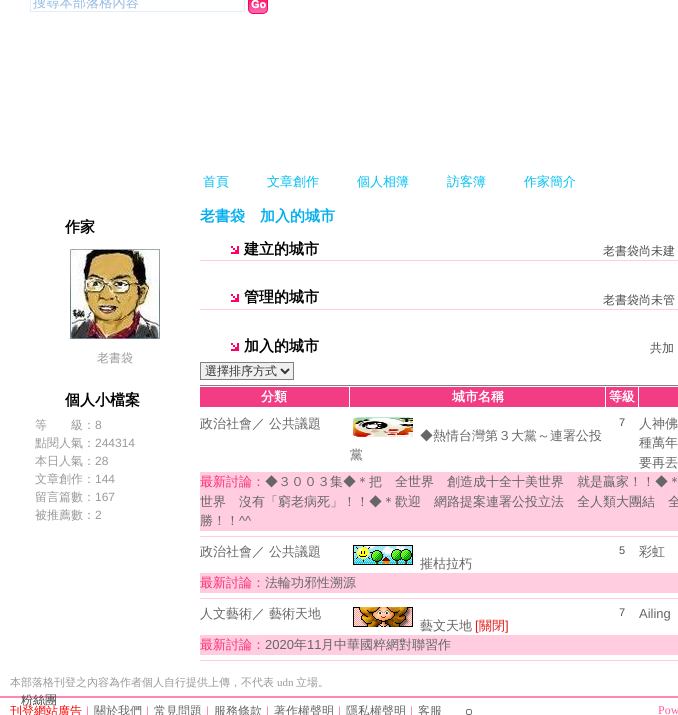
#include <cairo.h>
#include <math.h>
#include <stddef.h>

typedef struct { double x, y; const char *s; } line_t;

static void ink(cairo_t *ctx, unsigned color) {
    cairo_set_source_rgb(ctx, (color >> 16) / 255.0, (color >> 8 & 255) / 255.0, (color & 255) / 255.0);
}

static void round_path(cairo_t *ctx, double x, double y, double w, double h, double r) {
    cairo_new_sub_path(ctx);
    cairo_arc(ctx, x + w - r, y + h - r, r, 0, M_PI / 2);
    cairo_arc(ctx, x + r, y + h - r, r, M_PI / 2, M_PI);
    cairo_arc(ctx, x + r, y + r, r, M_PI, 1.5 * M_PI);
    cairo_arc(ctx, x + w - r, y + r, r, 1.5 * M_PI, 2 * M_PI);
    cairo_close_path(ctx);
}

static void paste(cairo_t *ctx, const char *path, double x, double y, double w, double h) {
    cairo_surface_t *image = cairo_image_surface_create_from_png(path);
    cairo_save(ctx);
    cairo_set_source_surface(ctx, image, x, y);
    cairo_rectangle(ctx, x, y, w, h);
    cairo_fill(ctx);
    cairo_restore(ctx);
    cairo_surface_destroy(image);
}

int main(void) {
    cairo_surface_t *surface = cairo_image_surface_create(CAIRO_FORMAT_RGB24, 678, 715);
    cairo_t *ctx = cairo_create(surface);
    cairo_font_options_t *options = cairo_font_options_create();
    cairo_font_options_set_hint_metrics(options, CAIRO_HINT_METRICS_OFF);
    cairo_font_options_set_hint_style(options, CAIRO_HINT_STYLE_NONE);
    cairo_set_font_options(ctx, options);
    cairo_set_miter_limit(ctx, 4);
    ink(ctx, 0xFFFFFF);
    cairo_paint(ctx);
    cairo_rectangle(ctx, 30.5, -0.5, 214, 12);
    ink(ctx, 0xE1EFFC);
    cairo_set_line_width(ctx, 1);
    cairo_stroke(ctx);
    cairo_select_font_face(ctx, "WenQuanYi Zen Hei Medium", CAIRO_FONT_SLANT_NORMAL, CAIRO_FONT_WEIGHT_NORMAL);
    cairo_set_font_size(ctx, 13.25);
    ink(ctx, 0x94B9E2);
    cairo_move_to(ctx, 33, 7);
    cairo_show_text(ctx, "搜尋本部落格內容");
    paste(ctx, "media/1.png", 248, 0, 20, 14);
    cairo_set_font_size(ctx, 13);
    ink(ctx, 0x00BFF3);
    {
        static const line_t items[] = {
            {203, 186, "首頁"},
            {267, 186, "文章創作"},
            {357, 186, "個人相簿"},
            {447, 186, "訪客簿"},
            {524, 186, "作家簡介"},
        };
        for (size_t i = 0; i < sizeof items / sizeof *items; i++) {
            cairo_move_to(ctx, items[i].x, items[i].y);
            cairo_show_text(ctx, items[i].s);
        }
    }
    cairo_select_font_face(ctx, "WenQuanYi Zen Hei", CAIRO_FONT_SLANT_NORMAL, CAIRO_FONT_WEIGHT_BOLD);
    cairo_set_font_size(ctx, 15);
    ink(ctx, 0x000000);
    cairo_move_to(ctx, 65, 232);
    cairo_show_text(ctx, "作家");
    paste(ctx, "media/2.png", 70, 249, 90, 90);
    cairo_select_font_face(ctx, "WenQuanYi Zen Hei Medium", CAIRO_FONT_SLANT_NORMAL, CAIRO_FONT_WEIGHT_NORMAL);
    cairo_set_font_size(ctx, 12);
    ink(ctx, 0x999999);
    cairo_move_to(ctx, 97, 362);
    cairo_show_text(ctx, "老書袋");
    cairo_select_font_face(ctx, "WenQuanYi Zen Hei", CAIRO_FONT_SLANT_NORMAL, CAIRO_FONT_WEIGHT_BOLD);
    cairo_set_font_size(ctx, 15);
    ink(ctx, 0x000000);
    cairo_move_to(ctx, 65, 405);
    cairo_show_text(ctx, "個人小檔案");
    cairo_select_font_face(ctx, "WenQuanYi Zen Hei Medium", CAIRO_FONT_SLANT_NORMAL, CAIRO_FONT_WEIGHT_NORMAL);
    cairo_set_font_size(ctx, 12);
    ink(ctx, 0x999999);
    cairo_move_to(ctx, 35, 429);
    cairo_show_text(ctx, "等　　級：");
    cairo_select_font_face(ctx, "Liberation Sans", CAIRO_FONT_SLANT_NORMAL, CAIRO_FONT_WEIGHT_NORMAL);
    cairo_move_to(ctx, 95, 429);
    cairo_show_text(ctx, "8");
    cairo_select_font_face(ctx, "WenQuanYi Zen Hei Medium", CAIRO_FONT_SLANT_NORMAL, CAIRO_FONT_WEIGHT_NORMAL);
    cairo_move_to(ctx, 35, 447);
    cairo_show_text(ctx, "點閱人氣：");
    cairo_select_font_face(ctx, "Liberation Sans", CAIRO_FONT_SLANT_NORMAL, CAIRO_FONT_WEIGHT_NORMAL);
    cairo_move_to(ctx, 95, 447);
    cairo_show_text(ctx, "244314");
    cairo_select_font_face(ctx, "WenQuanYi Zen Hei Medium", CAIRO_FONT_SLANT_NORMAL, CAIRO_FONT_WEIGHT_NORMAL);
    cairo_move_to(ctx, 35, 465);
    cairo_show_text(ctx, "本日人氣：");
    cairo_select_font_face(ctx, "Liberation Sans", CAIRO_FONT_SLANT_NORMAL, CAIRO_FONT_WEIGHT_NORMAL);
    cairo_move_to(ctx, 95, 465);
    cairo_show_text(ctx, "28");
    cairo_select_font_face(ctx, "WenQuanYi Zen Hei Medium", CAIRO_FONT_SLANT_NORMAL, CAIRO_FONT_WEIGHT_NORMAL);
    cairo_move_to(ctx, 35, 483);
    cairo_show_text(ctx, "文章創作：");
    cairo_select_font_face(ctx, "Liberation Sans", CAIRO_FONT_SLANT_NORMAL, CAIRO_FONT_WEIGHT_NORMAL);
    cairo_move_to(ctx, 95, 483);
    cairo_show_text(ctx, "144");
    cairo_select_font_face(ctx, "WenQuanYi Zen Hei Medium", CAIRO_FONT_SLANT_NORMAL, CAIRO_FONT_WEIGHT_NORMAL);
    cairo_move_to(ctx, 35, 501);
    cairo_show_text(ctx, "留言篇數：");
    cairo_select_font_face(ctx, "Liberation Sans", CAIRO_FONT_SLANT_NORMAL, CAIRO_FONT_WEIGHT_NORMAL);
    cairo_move_to(ctx, 95, 501);
    cairo_show_text(ctx, "167");
    cairo_select_font_face(ctx, "WenQuanYi Zen Hei Medium", CAIRO_FONT_SLANT_NORMAL, CAIRO_FONT_WEIGHT_NORMAL);
    cairo_move_to(ctx, 35, 519);
    cairo_show_text(ctx, "被推薦數：");
    cairo_select_font_face(ctx, "Liberation Sans", CAIRO_FONT_SLANT_NORMAL, CAIRO_FONT_WEIGHT_NORMAL);
    cairo_move_to(ctx, 95, 519);
    cairo_show_text(ctx, "2");
    cairo_select_font_face(ctx, "WenQuanYi Zen Hei", CAIRO_FONT_SLANT_NORMAL, CAIRO_FONT_WEIGHT_BOLD);
    cairo_set_font_size(ctx, 15);
    ink(ctx, 0x00AEEF);
    cairo_move_to(ctx, 200, 221);
    cairo_show_text(ctx, "老書袋　加入的城市");
    paste(ctx, "media/3.png", 231, 246, 8, 8);
    ink(ctx, 0x000000);
    cairo_move_to(ctx, 244, 254);
    cairo_show_text(ctx, "建立的城市");
    cairo_select_font_face(ctx, "WenQuanYi Zen Hei Medium", CAIRO_FONT_SLANT_NORMAL, CAIRO_FONT_WEIGHT_NORMAL);
    cairo_set_font_size(ctx, 12);
    ink(ctx, 0x4D4D4D);
    cairo_move_to(ctx, 603, 255);
    cairo_show_text(ctx, "老書袋尚未建");
    ink(ctx, 0xFFCCE0);
    cairo_rectangle(ctx, 200, 260, 478, 1);
    cairo_fill(ctx);
    paste(ctx, "media/3.png", 231, 294, 8, 8);
    cairo_select_font_face(ctx, "WenQuanYi Zen Hei", CAIRO_FONT_SLANT_NORMAL, CAIRO_FONT_WEIGHT_BOLD);
    cairo_set_font_size(ctx, 15);
    ink(ctx, 0x000000);
    cairo_move_to(ctx, 244, 302);
    cairo_show_text(ctx, "管理的城市");
    cairo_select_font_face(ctx, "WenQuanYi Zen Hei Medium", CAIRO_FONT_SLANT_NORMAL, CAIRO_FONT_WEIGHT_NORMAL);
    cairo_set_font_size(ctx, 12);
    ink(ctx, 0x4D4D4D);
    cairo_move_to(ctx, 603, 304);
    cairo_show_text(ctx, "老書袋尚未管");
    ink(ctx, 0xFFCCE0);
    cairo_rectangle(ctx, 200, 309, 478, 1);
    cairo_fill(ctx);
    paste(ctx, "media/3.png", 231, 343, 8, 8);
    cairo_select_font_face(ctx, "WenQuanYi Zen Hei", CAIRO_FONT_SLANT_NORMAL, CAIRO_FONT_WEIGHT_BOLD);
    cairo_set_font_size(ctx, 15);
    ink(ctx, 0x000000);
    cairo_move_to(ctx, 244, 351);
    cairo_show_text(ctx, "加入的城市");
    cairo_select_font_face(ctx, "WenQuanYi Zen Hei Medium", CAIRO_FONT_SLANT_NORMAL, CAIRO_FONT_WEIGHT_NORMAL);
    cairo_set_font_size(ctx, 12);
    ink(ctx, 0x4D4D4D);
    cairo_move_to(ctx, 650, 352);
    cairo_show_text(ctx, "共加");
    ink(ctx, 0xEFEFEF);
    cairo_rectangle(ctx, 200.5, 362.5, 93, 17);
    cairo_fill_preserve(ctx);
    ink(ctx, 0x808080);
    cairo_stroke(ctx);
    cairo_new_path(ctx);
    cairo_move_to(ctx, 281, 369);
    cairo_line_to(ctx, 285, 373);
    cairo_line_to(ctx, 289, 369);
    ink(ctx, 0x333333);
    cairo_set_line_width(ctx, 2);
    cairo_stroke(ctx);
    cairo_move_to(ctx, 205, 375);
    cairo_show_text(ctx, "選擇排序方式");
    ink(ctx, 0xF23D85);
    cairo_rectangle(ctx, 200, 387, 478, 20);
    cairo_fill(ctx);
    ink(ctx, 0x808080);
    cairo_rectangle(ctx, 200, 385, 478, 1);
    cairo_fill(ctx);
    cairo_select_font_face(ctx, "WenQuanYi Zen Hei", CAIRO_FONT_SLANT_NORMAL, CAIRO_FONT_WEIGHT_BOLD);
    cairo_set_font_size(ctx, 13);
    ink(ctx, 0xFFFFFF);
    cairo_move_to(ctx, 261, 401);
    cairo_show_text(ctx, "分類");
    cairo_rectangle(ctx, 349, 387, 1, 20);
    cairo_fill(ctx);
    cairo_move_to(ctx, 452, 401);
    cairo_show_text(ctx, "城市名稱");
    cairo_rectangle(ctx, 605, 387, 1, 20);
    cairo_fill(ctx);
    cairo_move_to(ctx, 609, 401);
    cairo_show_text(ctx, "等級");
    cairo_rectangle(ctx, 638, 387, 1, 20);
    cairo_fill(ctx);
    cairo_select_font_face(ctx, "WenQuanYi Zen Hei Medium", CAIRO_FONT_SLANT_NORMAL, CAIRO_FONT_WEIGHT_NORMAL);
    ink(ctx, 0x666666);
    cairo_move_to(ctx, 200, 428);
    cairo_show_text(ctx, "政治社會");
    ink(ctx, 0x4D4D4D);
    cairo_move_to(ctx, 252, 428);
    cairo_show_text(ctx, "／");
    ink(ctx, 0x666666);
    cairo_move_to(ctx, 269, 428);
    cairo_show_text(ctx, "公共議題");
    cairo_select_font_face(ctx, "Liberation Sans", CAIRO_FONT_SLANT_NORMAL, CAIRO_FONT_WEIGHT_NORMAL);
    cairo_set_font_size(ctx, 11);
    ink(ctx, 0x4D4D4D);
    cairo_move_to(ctx, 619, 426);
    cairo_show_text(ctx, "7");
    cairo_select_font_face(ctx, "WenQuanYi Zen Hei Medium", CAIRO_FONT_SLANT_NORMAL, CAIRO_FONT_WEIGHT_NORMAL);
    cairo_set_font_size(ctx, 13);
    ink(ctx, 0x666666);
    {
        static const line_t items[] = {
            {639, 428, "人神佛"},
            {639, 447, "種萬年"},
            {639, 467, "要再丟"},
        };
        for (size_t i = 0; i < sizeof items / sizeof *items; i++) {
            cairo_move_to(ctx, items[i].x, items[i].y);
            cairo_show_text(ctx, items[i].s);
        }
    }
    paste(ctx, "media/4.png", 353, 417, 60, 20);
    cairo_move_to(ctx, 420, 440);
    cairo_show_text(ctx, "◆熱情台灣第３大黨～連署公投");
    cairo_move_to(ctx, 350, 459);
    cairo_show_text(ctx, "黨");
    ink(ctx, 0xFFCCE0);
    cairo_rectangle(ctx, 200, 472, 478, 59);
    cairo_fill(ctx);
    ink(ctx, 0xFC2D73);
    cairo_move_to(ctx, 200, 486);
    cairo_show_text(ctx, "最新討論：");
    ink(ctx, 0x666666);
    {
        static const line_t items[] = {
            {265, 486, "◆３００３集◆＊把　全世界　創造成十全十美世界　就是贏家！！◆＊"},
            {200, 506, "世界　沒有「窮老病死」！！◆＊歡迎　網路提案連署公投立法　全人類大團結　全"},
            {200, 525, "勝！！"},
        };
        for (size_t i = 0; i < sizeof items / sizeof *items; i++) {
            cairo_move_to(ctx, items[i].x, items[i].y);
            cairo_show_text(ctx, items[i].s);
        }
    }
    cairo_select_font_face(ctx, "Liberation Sans", CAIRO_FONT_SLANT_NORMAL, CAIRO_FONT_WEIGHT_NORMAL);
    cairo_move_to(ctx, 239, 525);
    cairo_show_text(ctx, "^^");
    ink(ctx, 0xFFCCE0);
    cairo_rectangle(ctx, 200, 536, 478, 1);
    cairo_fill(ctx);
    cairo_select_font_face(ctx, "WenQuanYi Zen Hei Medium", CAIRO_FONT_SLANT_NORMAL, CAIRO_FONT_WEIGHT_NORMAL);
    ink(ctx, 0x666666);
    cairo_move_to(ctx, 200, 556);
    cairo_show_text(ctx, "政治社會");
    ink(ctx, 0x4D4D4D);
    cairo_move_to(ctx, 252, 556);
    cairo_show_text(ctx, "／");
    ink(ctx, 0x666666);
    cairo_move_to(ctx, 269, 556);
    cairo_show_text(ctx, "公共議題");
    cairo_select_font_face(ctx, "Liberation Sans", CAIRO_FONT_SLANT_NORMAL, CAIRO_FONT_WEIGHT_NORMAL);
    cairo_set_font_size(ctx, 11);
    ink(ctx, 0x4D4D4D);
    cairo_move_to(ctx, 619, 554);
    cairo_show_text(ctx, "5");
    cairo_select_font_face(ctx, "WenQuanYi Zen Hei Medium", CAIRO_FONT_SLANT_NORMAL, CAIRO_FONT_WEIGHT_NORMAL);
    cairo_set_font_size(ctx, 13);
    ink(ctx, 0x666666);
    cairo_move_to(ctx, 639, 556);
    cairo_show_text(ctx, "彩虹");
    paste(ctx, "media/5.png", 353, 545, 60, 20);
    cairo_move_to(ctx, 420, 568);
    cairo_show_text(ctx, "摧枯拉朽");
    ink(ctx, 0xFFCCE0);
    cairo_rectangle(ctx, 200, 573, 478, 20);
    cairo_fill(ctx);
    ink(ctx, 0xFC2D73);
    cairo_move_to(ctx, 200, 587);
    cairo_show_text(ctx, "最新討論：");
    ink(ctx, 0x666666);
    cairo_move_to(ctx, 265, 587);
    cairo_show_text(ctx, "法輪功邪性溯源");
    ink(ctx, 0xFFCCE0);
    cairo_rectangle(ctx, 200, 598, 478, 1);
    cairo_fill(ctx);
    ink(ctx, 0x666666);
    cairo_move_to(ctx, 200, 618);
    cairo_show_text(ctx, "人文藝術");
    ink(ctx, 0x4D4D4D);
    cairo_move_to(ctx, 252, 618);
    cairo_show_text(ctx, "／");
    ink(ctx, 0x666666);
    cairo_move_to(ctx, 269, 618);
    cairo_show_text(ctx, "藝術天地");
    cairo_select_font_face(ctx, "Liberation Sans", CAIRO_FONT_SLANT_NORMAL, CAIRO_FONT_WEIGHT_NORMAL);
    cairo_set_font_size(ctx, 11);
    ink(ctx, 0x4D4D4D);
    cairo_move_to(ctx, 619, 616);
    cairo_show_text(ctx, "7");
    cairo_set_font_size(ctx, 13);
    ink(ctx, 0x666666);
    cairo_move_to(ctx, 639, 618);
    cairo_show_text(ctx, "Ailing");
    paste(ctx, "media/6.png", 353, 607, 60, 20);
    cairo_select_font_face(ctx, "WenQuanYi Zen Hei Medium", CAIRO_FONT_SLANT_NORMAL, CAIRO_FONT_WEIGHT_NORMAL);
    cairo_move_to(ctx, 420, 630);
    cairo_show_text(ctx, "藝文天地");
    cairo_select_font_face(ctx, "Liberation Sans", CAIRO_FONT_SLANT_NORMAL, CAIRO_FONT_WEIGHT_NORMAL);
    ink(ctx, 0xE51717);
    cairo_move_to(ctx, 475, 630);
    cairo_show_text(ctx, "[");
    cairo_select_font_face(ctx, "WenQuanYi Zen Hei Medium", CAIRO_FONT_SLANT_NORMAL, CAIRO_FONT_WEIGHT_NORMAL);
    cairo_move_to(ctx, 479, 630);
    cairo_show_text(ctx, "關閉");
    cairo_select_font_face(ctx, "Liberation Sans", CAIRO_FONT_SLANT_NORMAL, CAIRO_FONT_WEIGHT_NORMAL);
    cairo_move_to(ctx, 505, 630);
    cairo_show_text(ctx, "]");
    ink(ctx, 0xFFCCE0);
    cairo_rectangle(ctx, 200, 635, 478, 20);
    cairo_fill(ctx);
    cairo_select_font_face(ctx, "WenQuanYi Zen Hei Medium", CAIRO_FONT_SLANT_NORMAL, CAIRO_FONT_WEIGHT_NORMAL);
    ink(ctx, 0xFC2D73);
    cairo_move_to(ctx, 200, 649);
    cairo_show_text(ctx, "最新討論：");
    cairo_select_font_face(ctx, "Liberation Sans", CAIRO_FONT_SLANT_NORMAL, CAIRO_FONT_WEIGHT_NORMAL);
    ink(ctx, 0x666666);
    cairo_move_to(ctx, 265, 649);
    cairo_show_text(ctx, "2020");
    cairo_select_font_face(ctx, "WenQuanYi Zen Hei Medium", CAIRO_FONT_SLANT_NORMAL, CAIRO_FONT_WEIGHT_NORMAL);
    cairo_move_to(ctx, 294, 649);
    cairo_show_text(ctx, "年");
    cairo_select_font_face(ctx, "Liberation Sans", CAIRO_FONT_SLANT_NORMAL, CAIRO_FONT_WEIGHT_NORMAL);
    cairo_move_to(ctx, 307, 649);
    cairo_show_text(ctx, "11");
    cairo_select_font_face(ctx, "WenQuanYi Zen Hei Medium", CAIRO_FONT_SLANT_NORMAL, CAIRO_FONT_WEIGHT_NORMAL);
    cairo_move_to(ctx, 321, 649);
    cairo_show_text(ctx, "月中華國粹網對聯習作");
    ink(ctx, 0xFFCCE0);
    cairo_rectangle(ctx, 200, 660, 478, 1);
    cairo_fill(ctx);
    ink(ctx, 0xFF87B6);
    cairo_rectangle(ctx, 0, 696, 678, 2);
    cairo_fill(ctx);
    cairo_set_font_size(ctx, 11);
    ink(ctx, 0x999999);
    cairo_move_to(ctx, 10, 686);
    cairo_show_text(ctx, "本部落格刊登之內容為作者個人自行提供上傳，不代表");
    cairo_select_font_face(ctx, "Liberation Serif", CAIRO_FONT_SLANT_NORMAL, CAIRO_FONT_WEIGHT_NORMAL);
    cairo_move_to(ctx, 277, 686);
    cairo_show_text(ctx, "udn");
    cairo_select_font_face(ctx, "WenQuanYi Zen Hei Medium", CAIRO_FONT_SLANT_NORMAL, CAIRO_FONT_WEIGHT_NORMAL);
    cairo_move_to(ctx, 296, 686);
    cairo_show_text(ctx, "立場。");
    cairo_set_font_size(ctx, 12);
    ink(ctx, 0xFF0000);
    cairo_move_to(ctx, 10, 715);
    cairo_show_text(ctx, "刊登網站廣告");
    ink(ctx, 0xFC2D73);
    cairo_move_to(ctx, 82, 715);
    cairo_show_text(ctx, "︱");
    ink(ctx, 0x666666);
    cairo_move_to(ctx, 94, 715);
    cairo_show_text(ctx, "關於我們");
    ink(ctx, 0xFC2D73);
    cairo_move_to(ctx, 142, 715);
    cairo_show_text(ctx, "︱");
    ink(ctx, 0x666666);
    cairo_move_to(ctx, 154, 715);
    cairo_show_text(ctx, "常見問題");
    ink(ctx, 0xFC2D73);
    cairo_move_to(ctx, 202, 715);
    cairo_show_text(ctx, "︱");
    ink(ctx, 0x666666);
    cairo_move_to(ctx, 214, 715);
    cairo_show_text(ctx, "服務條款");
    ink(ctx, 0xFC2D73);
    cairo_move_to(ctx, 262, 715);
    cairo_show_text(ctx, "︱");
    ink(ctx, 0x666666);
    cairo_move_to(ctx, 274, 715);
    cairo_show_text(ctx, "著作權聲明");
    ink(ctx, 0xFC2D73);
    cairo_move_to(ctx, 334, 715);
    cairo_show_text(ctx, "︱");
    ink(ctx, 0x666666);
    cairo_move_to(ctx, 346, 715);
    cairo_show_text(ctx, "隱私權聲明");
    ink(ctx, 0xFC2D73);
    cairo_move_to(ctx, 406, 715);
    cairo_show_text(ctx, "︱");
    ink(ctx, 0x666666);
    cairo_move_to(ctx, 418, 715);
    cairo_show_text(ctx, "客服");
    round_path(ctx, 466.5, 709.5, 5, 5, 1.5);
    ink(ctx, 0x767676);
    cairo_set_line_width(ctx, 1);
    cairo_stroke(ctx);
    cairo_select_font_face(ctx, "Liberation Serif", CAIRO_FONT_SLANT_NORMAL, CAIRO_FONT_WEIGHT_NORMAL);
    ink(ctx, 0xFF5E9D);
    cairo_move_to(ctx, 658, 714);
    cairo_show_text(ctx, "Pow");
    cairo_select_font_face(ctx, "WenQuanYi Zen Hei Medium", CAIRO_FONT_SLANT_NORMAL, CAIRO_FONT_WEIGHT_NORMAL);
    ink(ctx, 0x444444);
    cairo_move_to(ctx, 21, 704);
    cairo_show_text(ctx, "粉絲團");
    cairo_surface_write_to_png(surface, "image.png");
    cairo_font_options_destroy(options);
    cairo_destroy(ctx);
    cairo_surface_destroy(surface);
    return 0;
}
